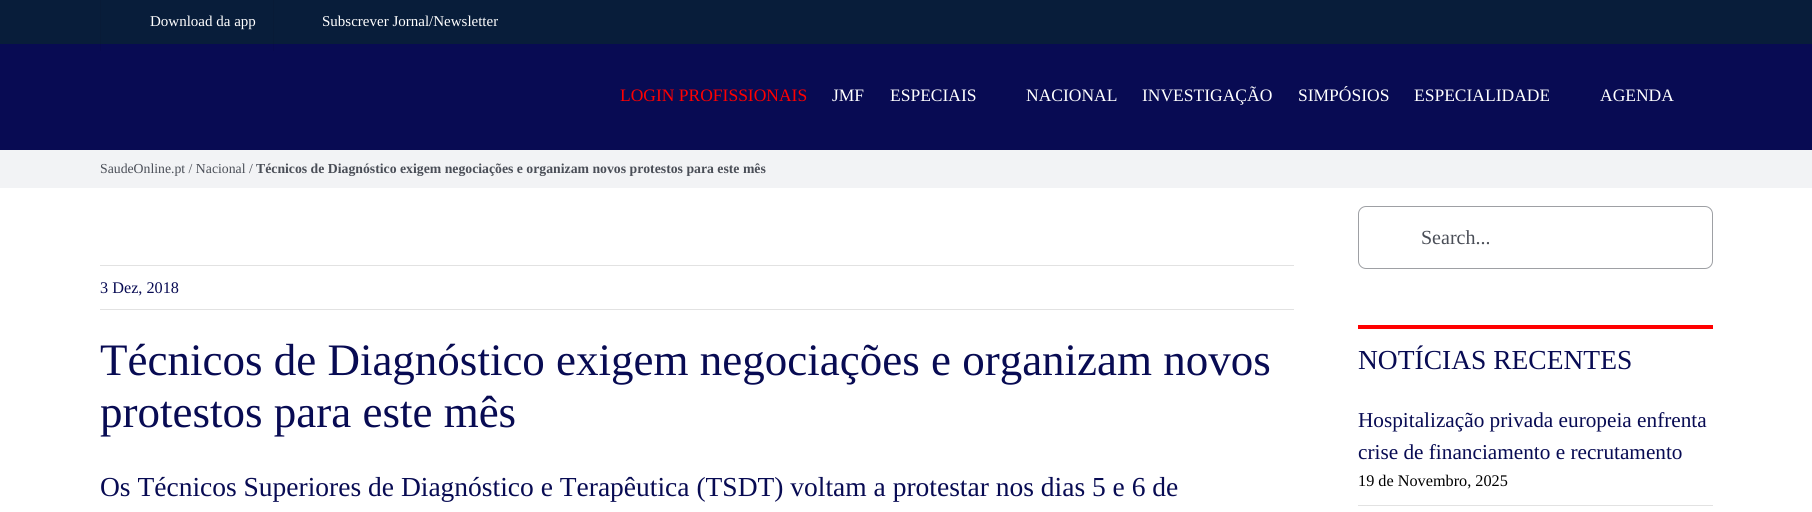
#include <cairo.h>
#include <math.h>
#include <stddef.h>

typedef struct { double x, y; const char *s; } line_t;
typedef struct { double x, y, w, h; unsigned color; } box_t;

static void ink(cairo_t *ctx, unsigned color) {
    cairo_set_source_rgb(ctx, (color >> 16) / 255.0, (color >> 8 & 255) / 255.0, (color & 255) / 255.0);
}

static void round_path(cairo_t *ctx, double x, double y, double w, double h, double r) {
    cairo_new_sub_path(ctx);
    cairo_arc(ctx, x + w - r, y + h - r, r, 0, M_PI / 2);
    cairo_arc(ctx, x + r, y + h - r, r, M_PI / 2, M_PI);
    cairo_arc(ctx, x + r, y + r, r, M_PI, 1.5 * M_PI);
    cairo_arc(ctx, x + w - r, y + r, r, 1.5 * M_PI, 2 * M_PI);
    cairo_close_path(ctx);
}

int main(void) {
    cairo_surface_t *surface = cairo_image_surface_create(CAIRO_FORMAT_RGB24, 1812, 512);
    cairo_t *ctx = cairo_create(surface);
    cairo_font_options_t *options = cairo_font_options_create();
    cairo_font_options_set_hint_metrics(options, CAIRO_HINT_METRICS_OFF);
    cairo_font_options_set_hint_style(options, CAIRO_HINT_STYLE_NONE);
    cairo_set_font_options(ctx, options);
    cairo_set_miter_limit(ctx, 4);
    ink(ctx, 0xFFFFFF);
    cairo_paint(ctx);
    {
        static const box_t items[] = {
            {0, 0, 1812, 44, 0x081D3A},
            {273, 0, 1, 51, 0x081B37},
            {100, 0, 1, 51, 0x081B37},
        };
        for (size_t i = 0; i < sizeof items / sizeof *items; i++) {
            ink(ctx, items[i].color);
            cairo_rectangle(ctx, items[i].x, items[i].y, items[i].w, items[i].h);
            cairo_fill(ctx);
        }
    }
    cairo_select_font_face(ctx, "Liberation Serif", CAIRO_FONT_SLANT_NORMAL, CAIRO_FONT_WEIGHT_NORMAL);
    cairo_set_font_size(ctx, 15);
    ink(ctx, 0xFFFFFF);
    cairo_move_to(ctx, 150, 26);
    cairo_show_text(ctx, "Download da app");
    cairo_move_to(ctx, 322, 26);
    cairo_show_text(ctx, "Subscrever Jornal/Newsletter");
    {
        static const box_t items[] = {
            {0, 44, 1812, 106, 0x080B53},
            {273, 44, 1, 7, 0x080A4E},
            {100, 44, 1, 7, 0x080A4E},
        };
        for (size_t i = 0; i < sizeof items / sizeof *items; i++) {
            ink(ctx, items[i].color);
            cairo_rectangle(ctx, items[i].x, items[i].y, items[i].w, items[i].h);
            cairo_fill(ctx);
        }
    }
    cairo_set_font_size(ctx, 17.5);
    ink(ctx, 0xFF0000);
    cairo_move_to(ctx, 620, 101);
    cairo_show_text(ctx, "LOGIN PROFISSIONAIS");
    ink(ctx, 0xFFFFFF);
    {
        static const line_t items[] = {
            {832, 101, "JMF"},
            {890, 101, "ESPECIAIS"},
            {1026, 101, "NACIONAL"},
            {1142, 101, "INVESTIGAÇÃO"},
            {1298, 101, "SIMPÓSIOS"},
            {1414, 101, "ESPECIALIDADE"},
            {1600, 101, "AGENDA"},
        };
        for (size_t i = 0; i < sizeof items / sizeof *items; i++) {
            cairo_move_to(ctx, items[i].x, items[i].y);
            cairo_show_text(ctx, items[i].s);
        }
    }
    ink(ctx, 0xF2F3F5);
    cairo_rectangle(ctx, 0, 150, 1812, 38);
    cairo_fill(ctx);
    cairo_set_font_size(ctx, 13.75);
    ink(ctx, 0x4A4E57);
    cairo_move_to(ctx, 100, 173);
    cairo_show_text(ctx, "SaudeOnline.pt / Nacional /");
    cairo_select_font_face(ctx, "Liberation Serif", CAIRO_FONT_SLANT_NORMAL, CAIRO_FONT_WEIGHT_BOLD);
    cairo_move_to(ctx, 256, 173);
    cairo_show_text(ctx, "Técnicos de Diagnóstico exigem negociações e organizam novos protestos para este mês");
    ink(ctx, 0xE2E2E2);
    cairo_rectangle(ctx, 100, 265, 1194, 1);
    cairo_fill(ctx);
    cairo_rectangle(ctx, 100, 309, 1194, 1);
    cairo_fill(ctx);
    cairo_select_font_face(ctx, "Liberation Serif", CAIRO_FONT_SLANT_NORMAL, CAIRO_FONT_WEIGHT_NORMAL);
    cairo_set_font_size(ctx, 16.25);
    ink(ctx, 0x080B53);
    cairo_move_to(ctx, 100, 293);
    cairo_show_text(ctx, "3 Dez, 2018");
    cairo_set_font_size(ctx, 45);
    cairo_move_to(ctx, 100, 375);
    cairo_show_text(ctx, "Técnicos de Diagnóstico exigem negociações e organizam novos");
    cairo_move_to(ctx, 100, 427);
    cairo_show_text(ctx, "protestos para este mês");
    cairo_set_font_size(ctx, 27.5);
    cairo_move_to(ctx, 100, 496);
    cairo_show_text(ctx, "Os Técnicos Superiores de Diagnóstico e Terapêutica (TSDT) voltam a protestar nos dias 5 e 6 de");
    round_path(ctx, 1358.5, 206.5, 354, 62, 7.5);
    ink(ctx, 0x9EA0A4);
    cairo_set_line_width(ctx, 1);
    cairo_stroke(ctx);
    cairo_set_font_size(ctx, 20);
    ink(ctx, 0x4A4E57);
    cairo_move_to(ctx, 1421, 244);
    cairo_show_text(ctx, "Search...");
    ink(ctx, 0xFF0000);
    cairo_rectangle(ctx, 1358, 325, 355, 4);
    cairo_fill(ctx);
    cairo_set_font_size(ctx, 27.5);
    ink(ctx, 0x080B53);
    cairo_move_to(ctx, 1358, 369);
    cairo_show_text(ctx, "NOTÍCIAS RECENTES");
    ink(ctx, 0xE2E2E2);
    cairo_rectangle(ctx, 1358, 505, 355, 1);
    cairo_fill(ctx);
    cairo_set_font_size(ctx, 21.25);
    ink(ctx, 0x080B53);
    cairo_move_to(ctx, 1358, 427);
    cairo_show_text(ctx, "Hospitalização privada europeia enfrenta");
    cairo_move_to(ctx, 1358, 459);
    cairo_show_text(ctx, "crise de financiamento e recrutamento");
    cairo_set_font_size(ctx, 16.25);
    ink(ctx, 0x000000);
    cairo_move_to(ctx, 1358, 486);
    cairo_show_text(ctx, "19 de Novembro, 2025");
    cairo_surface_write_to_png(surface, "image.png");
    cairo_font_options_destroy(options);
    cairo_destroy(ctx);
    cairo_surface_destroy(surface);
    return 0;
}
